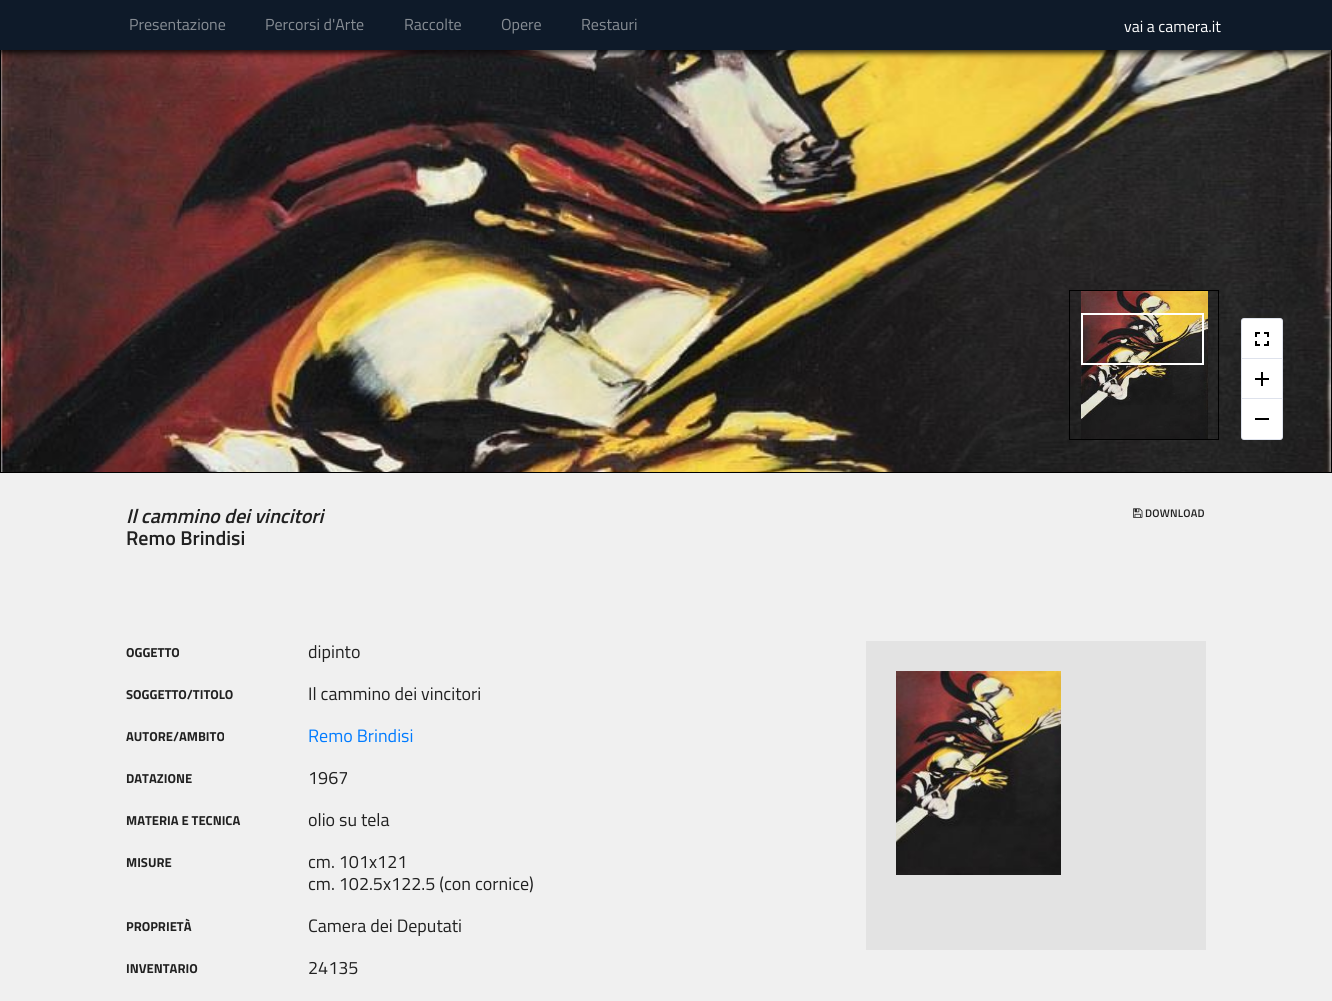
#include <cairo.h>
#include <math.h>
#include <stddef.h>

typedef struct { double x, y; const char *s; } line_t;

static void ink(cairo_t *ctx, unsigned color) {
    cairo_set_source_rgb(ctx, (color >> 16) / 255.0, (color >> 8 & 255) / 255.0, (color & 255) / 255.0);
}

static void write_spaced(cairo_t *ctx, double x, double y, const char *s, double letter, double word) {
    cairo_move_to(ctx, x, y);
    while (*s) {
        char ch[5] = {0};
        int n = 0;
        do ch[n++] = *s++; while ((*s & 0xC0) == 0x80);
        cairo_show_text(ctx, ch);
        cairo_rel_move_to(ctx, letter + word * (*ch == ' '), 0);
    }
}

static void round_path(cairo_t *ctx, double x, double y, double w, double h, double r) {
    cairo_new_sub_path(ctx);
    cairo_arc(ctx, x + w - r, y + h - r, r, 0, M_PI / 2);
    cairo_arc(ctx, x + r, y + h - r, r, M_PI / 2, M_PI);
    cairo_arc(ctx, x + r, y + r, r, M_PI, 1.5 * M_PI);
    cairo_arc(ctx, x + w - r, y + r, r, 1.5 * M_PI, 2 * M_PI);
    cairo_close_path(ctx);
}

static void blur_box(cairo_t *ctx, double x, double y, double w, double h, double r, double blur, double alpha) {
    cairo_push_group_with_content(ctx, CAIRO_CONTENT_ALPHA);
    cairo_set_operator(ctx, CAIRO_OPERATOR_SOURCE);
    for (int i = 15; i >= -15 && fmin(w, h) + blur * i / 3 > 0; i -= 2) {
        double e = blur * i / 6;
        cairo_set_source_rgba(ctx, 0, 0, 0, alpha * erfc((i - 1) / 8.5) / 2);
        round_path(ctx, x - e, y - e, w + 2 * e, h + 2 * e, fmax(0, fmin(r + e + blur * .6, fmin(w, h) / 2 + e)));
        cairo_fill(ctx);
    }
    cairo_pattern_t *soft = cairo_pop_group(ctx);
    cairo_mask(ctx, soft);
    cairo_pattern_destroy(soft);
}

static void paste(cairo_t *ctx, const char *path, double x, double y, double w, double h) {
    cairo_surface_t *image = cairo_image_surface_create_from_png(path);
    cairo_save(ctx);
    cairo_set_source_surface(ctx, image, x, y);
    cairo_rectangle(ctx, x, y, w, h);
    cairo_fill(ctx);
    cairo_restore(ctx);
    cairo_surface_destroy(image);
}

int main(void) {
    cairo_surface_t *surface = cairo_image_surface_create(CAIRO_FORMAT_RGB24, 1332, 1001);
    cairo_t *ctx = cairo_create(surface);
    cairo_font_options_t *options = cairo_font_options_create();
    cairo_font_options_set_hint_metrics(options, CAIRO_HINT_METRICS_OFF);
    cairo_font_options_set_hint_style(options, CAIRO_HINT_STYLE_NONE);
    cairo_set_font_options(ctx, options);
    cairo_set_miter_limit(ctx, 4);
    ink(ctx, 0xF0F0F0);
    cairo_paint(ctx);
    cairo_rectangle(ctx, 0.5, -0.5, 1331, 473);
    ink(ctx, 0x000000);
    cairo_set_line_width(ctx, 1);
    cairo_stroke(ctx);
    paste(ctx, "media/1.png", 1, 50, 1330, 422);
    ink(ctx, 0x000000);
    blur_box(ctx, 0, 3, 1332, 50, 0, 3, 0.82);
    ink(ctx, 0x0E1A29);
    cairo_rectangle(ctx, 0, 0, 1332, 50);
    cairo_fill(ctx);
    cairo_select_font_face(ctx, "Titillium Web", CAIRO_FONT_SLANT_NORMAL, CAIRO_FONT_WEIGHT_NORMAL);
    cairo_set_font_size(ctx, 16);
    ink(ctx, 0x878D94);
    {
        static const line_t items[] = {
            {129, 30, "Presentazione"},
            {265, 30, "Percorsi d'Arte"},
            {404, 30, "Raccolte"},
            {501, 30, "Opere"},
            {581, 30, "Restauri"},
        };
        for (size_t i = 0; i < sizeof items / sizeof *items; i++) {
            cairo_move_to(ctx, items[i].x, items[i].y);
            cairo_show_text(ctx, items[i].s);
        }
    }
    ink(ctx, 0xFFFFFF);
    cairo_move_to(ctx, 1124, 32);
    cairo_show_text(ctx, "vai a camera.it");
    cairo_rectangle(ctx, 1069.5, 290.5, 149, 149);
    ink(ctx, 0x000000);
    cairo_stroke(ctx);
    paste(ctx, "media/2.png", 1081, 291, 127, 148);
    cairo_rectangle(ctx, 1082, 314, 121, 50);
    ink(ctx, 0xFFFFFF);
    cairo_set_line_width(ctx, 2);
    cairo_stroke(ctx);
    round_path(ctx, 1241, 318, 42, 122, 3);
    cairo_fill(ctx);
    round_path(ctx, 1241.5, 318.5, 41, 121, 2.5);
    cairo_set_source_rgba(ctx, 0.145, 0.251, 0.506, 0.15);
    cairo_set_line_width(ctx, 1);
    cairo_stroke(ctx);
    ink(ctx, 0xDEE2EC);
    cairo_rectangle(ctx, 1242, 358, 40, 1);
    cairo_fill(ctx);
    paste(ctx, "media/3.png", 1255, 332, 14, 14);
    cairo_rectangle(ctx, 1242, 398, 40, 1);
    cairo_fill(ctx);
    paste(ctx, "media/4.png", 1255, 372, 14, 14);
    ink(ctx, 0x000000);
    cairo_rectangle(ctx, 1255, 418, 14, 2);
    cairo_fill(ctx);
    cairo_select_font_face(ctx, "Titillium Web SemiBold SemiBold", CAIRO_FONT_SLANT_ITALIC, CAIRO_FONT_WEIGHT_NORMAL);
    cairo_set_font_size(ctx, 20);
    ink(ctx, 0x212121);
    cairo_move_to(ctx, 126, 523);
    cairo_show_text(ctx, "Il cammino dei vincitori");
    cairo_select_font_face(ctx, "Titillium Web SemiBold SemiBold", CAIRO_FONT_SLANT_NORMAL, CAIRO_FONT_WEIGHT_NORMAL);
    cairo_move_to(ctx, 126, 545);
    cairo_show_text(ctx, "Remo Brindisi");
    paste(ctx, "media/5.png", 1133, 508, 10, 10);
    cairo_set_font_size(ctx, 11);
    write_spaced(ctx, 1145, 517, "DOWNLOAD", 0.25, 0);
    cairo_select_font_face(ctx, "Titillium Web", CAIRO_FONT_SLANT_NORMAL, CAIRO_FONT_WEIGHT_BOLD);
    cairo_set_font_size(ctx, 13);
    cairo_move_to(ctx, 126, 657);
    cairo_show_text(ctx, "OGGETTO");
    cairo_select_font_face(ctx, "Titillium Web", CAIRO_FONT_SLANT_NORMAL, CAIRO_FONT_WEIGHT_NORMAL);
    cairo_set_font_size(ctx, 18);
    cairo_move_to(ctx, 308, 658);
    cairo_show_text(ctx, "dipinto");
    cairo_select_font_face(ctx, "Titillium Web", CAIRO_FONT_SLANT_NORMAL, CAIRO_FONT_WEIGHT_BOLD);
    cairo_set_font_size(ctx, 13);
    cairo_move_to(ctx, 126, 699);
    cairo_show_text(ctx, "SOGGETTO/TITOLO");
    cairo_select_font_face(ctx, "Titillium Web", CAIRO_FONT_SLANT_NORMAL, CAIRO_FONT_WEIGHT_NORMAL);
    cairo_set_font_size(ctx, 18);
    cairo_move_to(ctx, 308, 700);
    cairo_show_text(ctx, "Il cammino dei vincitori");
    cairo_select_font_face(ctx, "Titillium Web", CAIRO_FONT_SLANT_NORMAL, CAIRO_FONT_WEIGHT_BOLD);
    cairo_set_font_size(ctx, 13);
    cairo_move_to(ctx, 126, 741);
    cairo_show_text(ctx, "AUTORE/AMBITO");
    cairo_select_font_face(ctx, "Titillium Web", CAIRO_FONT_SLANT_NORMAL, CAIRO_FONT_WEIGHT_NORMAL);
    cairo_set_font_size(ctx, 18);
    ink(ctx, 0x007BFF);
    cairo_move_to(ctx, 308, 742);
    cairo_show_text(ctx, "Remo Brindisi");
    cairo_select_font_face(ctx, "Titillium Web", CAIRO_FONT_SLANT_NORMAL, CAIRO_FONT_WEIGHT_BOLD);
    cairo_set_font_size(ctx, 13);
    ink(ctx, 0x212121);
    cairo_move_to(ctx, 126, 783);
    cairo_show_text(ctx, "DATAZIONE");
    cairo_select_font_face(ctx, "Titillium Web", CAIRO_FONT_SLANT_NORMAL, CAIRO_FONT_WEIGHT_NORMAL);
    cairo_set_font_size(ctx, 18);
    cairo_move_to(ctx, 308, 784);
    cairo_show_text(ctx, "1967");
    cairo_select_font_face(ctx, "Titillium Web", CAIRO_FONT_SLANT_NORMAL, CAIRO_FONT_WEIGHT_BOLD);
    cairo_set_font_size(ctx, 13);
    cairo_move_to(ctx, 126, 825);
    cairo_show_text(ctx, "MATERIA E TECNICA");
    cairo_select_font_face(ctx, "Titillium Web", CAIRO_FONT_SLANT_NORMAL, CAIRO_FONT_WEIGHT_NORMAL);
    cairo_set_font_size(ctx, 18);
    cairo_move_to(ctx, 308, 826);
    cairo_show_text(ctx, "olio su tela");
    cairo_select_font_face(ctx, "Titillium Web", CAIRO_FONT_SLANT_NORMAL, CAIRO_FONT_WEIGHT_BOLD);
    cairo_set_font_size(ctx, 13);
    cairo_move_to(ctx, 126, 867);
    cairo_show_text(ctx, "MISURE");
    cairo_select_font_face(ctx, "Titillium Web", CAIRO_FONT_SLANT_NORMAL, CAIRO_FONT_WEIGHT_NORMAL);
    cairo_set_font_size(ctx, 18);
    cairo_move_to(ctx, 308, 868);
    cairo_show_text(ctx, "cm. 101x121");
    cairo_move_to(ctx, 308, 890);
    cairo_show_text(ctx, "cm. 102.5x122.5 (con cornice)");
    cairo_select_font_face(ctx, "Titillium Web", CAIRO_FONT_SLANT_NORMAL, CAIRO_FONT_WEIGHT_BOLD);
    cairo_set_font_size(ctx, 13);
    cairo_move_to(ctx, 126, 931);
    cairo_show_text(ctx, "PROPRIETÀ");
    cairo_select_font_face(ctx, "Titillium Web", CAIRO_FONT_SLANT_NORMAL, CAIRO_FONT_WEIGHT_NORMAL);
    cairo_set_font_size(ctx, 18);
    cairo_move_to(ctx, 308, 932);
    cairo_show_text(ctx, "Camera dei Deputati");
    cairo_select_font_face(ctx, "Titillium Web", CAIRO_FONT_SLANT_NORMAL, CAIRO_FONT_WEIGHT_BOLD);
    cairo_set_font_size(ctx, 13);
    cairo_move_to(ctx, 126, 973);
    cairo_show_text(ctx, "INVENTARIO");
    cairo_select_font_face(ctx, "Titillium Web", CAIRO_FONT_SLANT_NORMAL, CAIRO_FONT_WEIGHT_NORMAL);
    cairo_set_font_size(ctx, 18);
    cairo_move_to(ctx, 308, 974);
    cairo_show_text(ctx, "24135");
    ink(ctx, 0xE3E3E3);
    cairo_rectangle(ctx, 866, 641, 340, 309);
    cairo_fill(ctx);
    paste(ctx, "media/6.png", 896, 671, 165, 204);
    cairo_surface_write_to_png(surface, "image.png");
    cairo_font_options_destroy(options);
    cairo_destroy(ctx);
    cairo_surface_destroy(surface);
    return 0;
}
